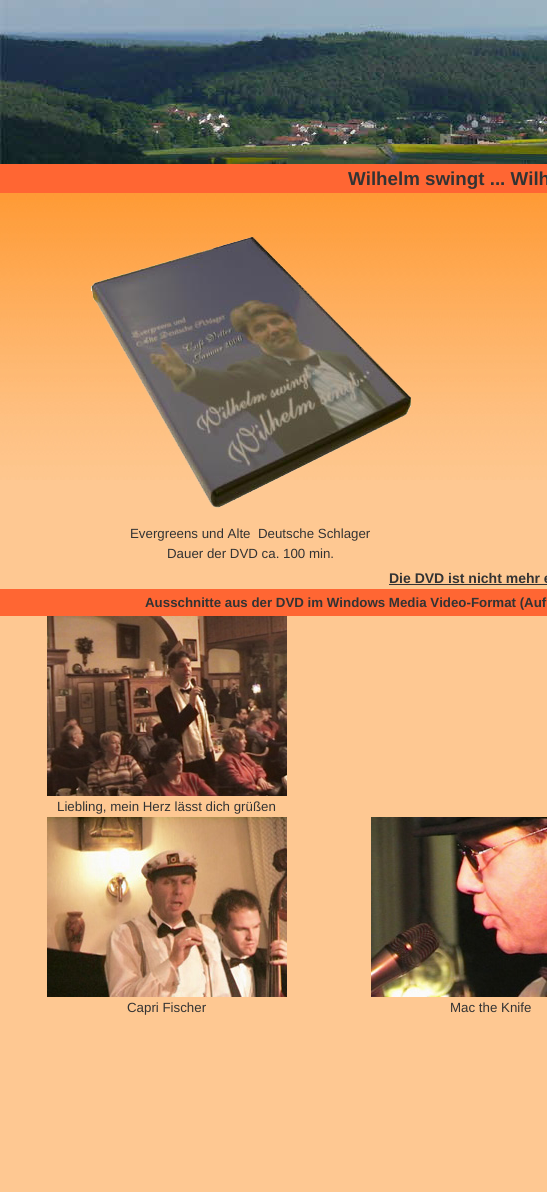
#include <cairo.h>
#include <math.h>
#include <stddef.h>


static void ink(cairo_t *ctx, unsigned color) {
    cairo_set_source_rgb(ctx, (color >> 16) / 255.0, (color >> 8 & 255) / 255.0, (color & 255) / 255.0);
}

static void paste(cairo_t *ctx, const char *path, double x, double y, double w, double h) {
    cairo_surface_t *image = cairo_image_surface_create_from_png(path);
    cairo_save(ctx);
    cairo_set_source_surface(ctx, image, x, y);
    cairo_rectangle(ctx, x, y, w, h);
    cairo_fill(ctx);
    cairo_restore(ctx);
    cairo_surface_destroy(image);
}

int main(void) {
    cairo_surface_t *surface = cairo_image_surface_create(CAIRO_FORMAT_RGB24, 547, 1192);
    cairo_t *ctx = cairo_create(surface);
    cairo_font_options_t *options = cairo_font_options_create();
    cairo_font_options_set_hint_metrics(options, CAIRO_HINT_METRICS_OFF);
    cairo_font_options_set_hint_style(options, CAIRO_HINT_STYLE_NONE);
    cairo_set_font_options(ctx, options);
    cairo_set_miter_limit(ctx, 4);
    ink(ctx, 0xFEC892);
    cairo_paint(ctx);
    paste(ctx, "media/1.png", 0, 193, 547, 287);
    paste(ctx, "media/2.png", 0, 0, 547, 164);
    ink(ctx, 0xFF6633);
    cairo_rectangle(ctx, 0, 164, 547, 29);
    cairo_fill(ctx);
    cairo_select_font_face(ctx, "Liberation Sans", CAIRO_FONT_SLANT_NORMAL, CAIRO_FONT_WEIGHT_BOLD);
    cairo_set_font_size(ctx, 18.75);
    ink(ctx, 0x333333);
    cairo_move_to(ctx, 348, 185);
    cairo_show_text(ctx, "Wilhelm swingt ... Wilh");
    paste(ctx, "media/3.png", 91, 236, 320, 272);
    cairo_select_font_face(ctx, "Liberation Sans", CAIRO_FONT_SLANT_NORMAL, CAIRO_FONT_WEIGHT_NORMAL);
    cairo_set_font_size(ctx, 13.3);
    cairo_move_to(ctx, 130, 538);
    cairo_show_text(ctx, "Evergreens und Alte  Deutsche Schlager");
    cairo_move_to(ctx, 167, 558);
    cairo_show_text(ctx, "Dauer der DVD ca. 100 min.");
    cairo_select_font_face(ctx, "Liberation Sans", CAIRO_FONT_SLANT_NORMAL, CAIRO_FONT_WEIGHT_BOLD);
    cairo_set_font_size(ctx, 14);
    cairo_move_to(ctx, 389, 583);
    cairo_show_text(ctx, "Die DVD ist nicht mehr e");
    cairo_rectangle(ctx, 389, 584, 158, 1);
    cairo_fill(ctx);
    ink(ctx, 0xFF6633);
    cairo_rectangle(ctx, 0, 589, 547, 27);
    cairo_fill(ctx);
    cairo_set_font_size(ctx, 13.3);
    ink(ctx, 0x333333);
    cairo_move_to(ctx, 145, 607);
    cairo_show_text(ctx, "Ausschnitte aus der DVD im Windows Media Video-Format (Auf");
    paste(ctx, "media/4.png", 47, 616, 240, 180);
    cairo_select_font_face(ctx, "Liberation Sans", CAIRO_FONT_SLANT_NORMAL, CAIRO_FONT_WEIGHT_NORMAL);
    cairo_move_to(ctx, 57, 811);
    cairo_show_text(ctx, "Liebling, mein Herz lässt dich grüßen");
    paste(ctx, "media/5.png", 47, 817, 240, 180);
    paste(ctx, "media/6.png", 371, 817, 176, 180);
    cairo_move_to(ctx, 127, 1012);
    cairo_show_text(ctx, "Capri Fischer");
    cairo_move_to(ctx, 450, 1012);
    cairo_show_text(ctx, "Mac the Knife");
    cairo_surface_write_to_png(surface, "image.png");
    cairo_font_options_destroy(options);
    cairo_destroy(ctx);
    cairo_surface_destroy(surface);
    return 0;
}
